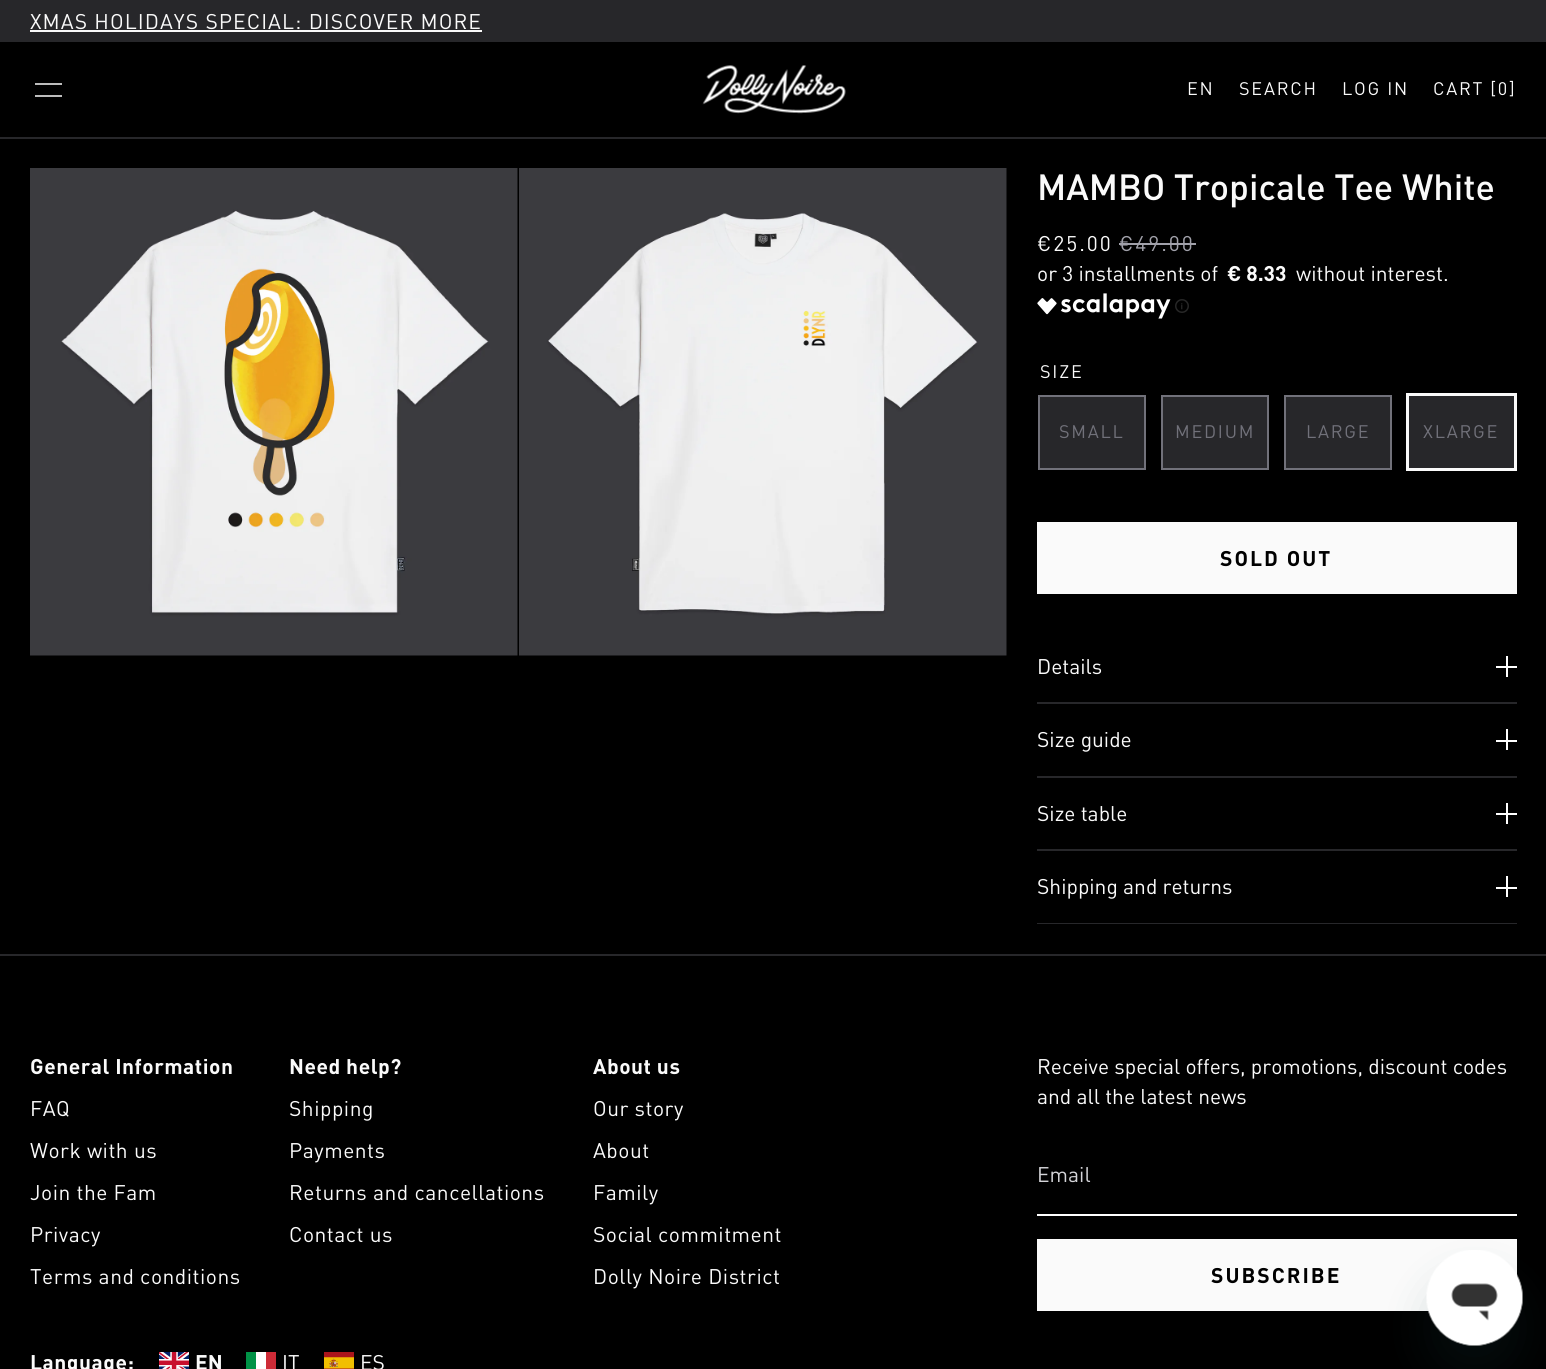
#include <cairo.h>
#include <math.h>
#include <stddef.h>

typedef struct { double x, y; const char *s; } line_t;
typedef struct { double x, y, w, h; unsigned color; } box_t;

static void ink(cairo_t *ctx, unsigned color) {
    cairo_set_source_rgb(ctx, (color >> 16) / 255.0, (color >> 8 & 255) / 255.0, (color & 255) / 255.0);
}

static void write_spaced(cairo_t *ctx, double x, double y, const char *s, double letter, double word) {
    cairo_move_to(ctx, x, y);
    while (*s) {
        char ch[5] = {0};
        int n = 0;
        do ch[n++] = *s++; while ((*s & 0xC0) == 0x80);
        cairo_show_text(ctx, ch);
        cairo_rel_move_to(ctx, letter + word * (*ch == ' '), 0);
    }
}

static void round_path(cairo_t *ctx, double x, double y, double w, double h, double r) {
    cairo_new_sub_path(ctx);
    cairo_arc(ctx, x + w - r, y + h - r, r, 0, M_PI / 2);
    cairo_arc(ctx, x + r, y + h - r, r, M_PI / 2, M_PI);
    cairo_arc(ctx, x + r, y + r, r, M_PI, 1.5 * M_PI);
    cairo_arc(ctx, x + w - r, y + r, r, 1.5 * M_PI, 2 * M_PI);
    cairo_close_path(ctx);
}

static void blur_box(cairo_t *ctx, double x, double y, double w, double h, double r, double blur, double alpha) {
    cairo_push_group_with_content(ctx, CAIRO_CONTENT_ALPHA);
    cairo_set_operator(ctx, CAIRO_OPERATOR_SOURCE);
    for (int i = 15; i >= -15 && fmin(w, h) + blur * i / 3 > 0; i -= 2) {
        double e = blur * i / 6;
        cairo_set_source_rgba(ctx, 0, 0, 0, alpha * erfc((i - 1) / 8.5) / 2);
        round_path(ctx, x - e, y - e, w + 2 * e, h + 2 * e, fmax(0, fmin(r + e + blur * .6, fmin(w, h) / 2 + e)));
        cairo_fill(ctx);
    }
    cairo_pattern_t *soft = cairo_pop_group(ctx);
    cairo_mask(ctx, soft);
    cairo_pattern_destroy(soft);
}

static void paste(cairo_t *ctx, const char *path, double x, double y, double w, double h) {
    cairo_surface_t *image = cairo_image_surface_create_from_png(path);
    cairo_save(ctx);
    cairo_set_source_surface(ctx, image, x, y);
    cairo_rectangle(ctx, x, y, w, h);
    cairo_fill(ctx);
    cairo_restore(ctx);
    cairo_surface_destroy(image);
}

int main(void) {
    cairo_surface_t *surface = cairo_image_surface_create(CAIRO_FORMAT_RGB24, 1546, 1369);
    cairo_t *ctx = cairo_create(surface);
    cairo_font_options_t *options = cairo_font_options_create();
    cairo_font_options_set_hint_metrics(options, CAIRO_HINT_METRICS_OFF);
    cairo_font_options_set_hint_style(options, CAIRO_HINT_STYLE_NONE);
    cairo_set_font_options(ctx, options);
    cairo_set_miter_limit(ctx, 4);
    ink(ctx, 0x000000);
    cairo_paint(ctx);
    ink(ctx, 0x27272A);
    cairo_rectangle(ctx, 0, 0, 1546, 42);
    cairo_fill(ctx);
    cairo_select_font_face(ctx, "DIN", CAIRO_FONT_SLANT_NORMAL, CAIRO_FONT_WEIGHT_NORMAL);
    cairo_set_font_size(ctx, 21);
    ink(ctx, 0xFAFAFA);
    write_spaced(ctx, 30, 29, "XMAS HOLIDAYS SPECIAL: DISCOVER MORE", 1.05, 0);
    {
        static const box_t items[] = {
            {30, 30, 452, 2, 0xFAFAFA},
            {0, 137, 1546, 2, 0x27272A},
            {35, 83, 27, 2, 0xBCBCBC},
            {35, 95, 27, 2, 0xBCBCBC},
        };
        for (size_t i = 0; i < sizeof items / sizeof *items; i++) {
            ink(ctx, items[i].color);
            cairo_rectangle(ctx, items[i].x, items[i].y, items[i].w, items[i].h);
            cairo_fill(ctx);
        }
    }
    paste(ctx, "media/1.png", 702, 65, 144, 49);
    cairo_set_font_size(ctx, 18);
    ink(ctx, 0xFAFAFA);
    {
        static const line_t items[] = {
            {1187, 95, "EN"},
            {1239, 95, "SEARCH"},
            {1342, 95, "LOG IN"},
            {1433, 95, "CART [0]"},
        };
        for (size_t i = 0; i < sizeof items / sizeof *items; i++) {
            write_spaced(ctx, items[i].x, items[i].y, items[i].s, 1.75, 0);
        }
    }
    paste(ctx, "media/2.png", 30, 168, 488, 488);
    paste(ctx, "media/3.png", 519, 168, 488, 488);
    cairo_select_font_face(ctx, "DIN Medium", CAIRO_FONT_SLANT_NORMAL, CAIRO_FONT_WEIGHT_NORMAL);
    cairo_set_font_size(ctx, 36);
    cairo_move_to(ctx, 1037, 200);
    cairo_show_text(ctx, "MAMBO Tropicale Tee White");
    cairo_select_font_face(ctx, "DIN", CAIRO_FONT_SLANT_NORMAL, CAIRO_FONT_WEIGHT_NORMAL);
    cairo_set_font_size(ctx, 21);
    write_spaced(ctx, 1037, 251, "€25.00", 2, 0);
    ink(ctx, 0xA1A1AA);
    write_spaced(ctx, 1119, 251, "€49.00", 2, 0);
    cairo_rectangle(ctx, 1119, 243, 77, 2);
    cairo_fill(ctx);
    ink(ctx, 0xFAFAFA);
    cairo_move_to(ctx, 1037, 281);
    cairo_show_text(ctx, "or 3 installments of");
    cairo_select_font_face(ctx, "DIN", CAIRO_FONT_SLANT_NORMAL, CAIRO_FONT_WEIGHT_BOLD);
    cairo_move_to(ctx, 1227, 281);
    cairo_show_text(ctx, "€ 8.33");
    cairo_select_font_face(ctx, "DIN", CAIRO_FONT_SLANT_NORMAL, CAIRO_FONT_WEIGHT_NORMAL);
    cairo_move_to(ctx, 1296, 281);
    cairo_show_text(ctx, "without interest.");
    paste(ctx, "media/4.png", 1037, 293, 134, 26);
    paste(ctx, "media/5.png", 1175, 299, 14, 14);
    cairo_set_font_size(ctx, 18);
    write_spaced(ctx, 1040, 378, "SIZE", 1.75, 0);
    ink(ctx, 0x27272A);
    cairo_rectangle(ctx, 1040, 397, 104, 71);
    cairo_fill(ctx);
    cairo_rectangle(ctx, 1039, 396, 106, 73);
    ink(ctx, 0x71717A);
    cairo_stroke(ctx);
    write_spaced(ctx, 1059, 438, "SMALL", 1.75, 0);
    ink(ctx, 0x27272A);
    cairo_rectangle(ctx, 1163, 397, 104, 71);
    cairo_fill(ctx);
    cairo_rectangle(ctx, 1162, 396, 106, 73);
    ink(ctx, 0x71717A);
    cairo_stroke(ctx);
    write_spaced(ctx, 1175, 438, "MEDIUM", 1.75, 0);
    ink(ctx, 0x27272A);
    cairo_rectangle(ctx, 1286, 397, 104, 71);
    cairo_fill(ctx);
    cairo_rectangle(ctx, 1285, 396, 106, 73);
    ink(ctx, 0x71717A);
    cairo_stroke(ctx);
    write_spaced(ctx, 1306, 438, "LARGE", 1.75, 0);
    ink(ctx, 0x27272A);
    cairo_rectangle(ctx, 1409, 396, 105, 72);
    cairo_fill(ctx);
    cairo_rectangle(ctx, 1407.5, 394.5, 108, 75);
    ink(ctx, 0xFAFAFA);
    cairo_set_line_width(ctx, 3);
    cairo_stroke(ctx);
    ink(ctx, 0x71717A);
    write_spaced(ctx, 1423, 438, "XLARGE", 1.75, 0);
    ink(ctx, 0xFAFAFA);
    cairo_rectangle(ctx, 1037, 522, 480, 72);
    cairo_fill(ctx);
    cairo_select_font_face(ctx, "DIN", CAIRO_FONT_SLANT_NORMAL, CAIRO_FONT_WEIGHT_BOLD);
    cairo_set_font_size(ctx, 21);
    ink(ctx, 0x000000);
    write_spaced(ctx, 1220, 566, "SOLD OUT", 2, 0);
    ink(ctx, 0x27272A);
    cairo_rectangle(ctx, 1037, 702, 480, 2);
    cairo_fill(ctx);
    cairo_select_font_face(ctx, "DIN", CAIRO_FONT_SLANT_NORMAL, CAIRO_FONT_WEIGHT_NORMAL);
    ink(ctx, 0xFAFAFA);
    cairo_move_to(ctx, 1037, 674);
    cairo_show_text(ctx, "Details");
    {
        static const box_t items[] = {
            {1506, 656, 2, 21, 0xFFFFFF},
            {1496, 666, 21, 2, 0xFFFFFF},
            {1037, 776, 480, 2, 0x27272A},
        };
        for (size_t i = 0; i < sizeof items / sizeof *items; i++) {
            ink(ctx, items[i].color);
            cairo_rectangle(ctx, items[i].x, items[i].y, items[i].w, items[i].h);
            cairo_fill(ctx);
        }
    }
    ink(ctx, 0xFAFAFA);
    cairo_move_to(ctx, 1037, 747);
    cairo_show_text(ctx, "Size guide");
    {
        static const box_t items[] = {
            {1506, 729, 2, 21, 0xFFFFFF},
            {1496, 740, 21, 2, 0xFFFFFF},
            {1037, 849, 480, 2, 0x27272A},
        };
        for (size_t i = 0; i < sizeof items / sizeof *items; i++) {
            ink(ctx, items[i].color);
            cairo_rectangle(ctx, items[i].x, items[i].y, items[i].w, items[i].h);
            cairo_fill(ctx);
        }
    }
    ink(ctx, 0xFAFAFA);
    cairo_move_to(ctx, 1037, 821);
    cairo_show_text(ctx, "Size table");
    {
        static const box_t items[] = {
            {1506, 803, 2, 21, 0xFFFFFF},
            {1496, 813, 21, 2, 0xFFFFFF},
            {1037, 923, 480, 1, 0x27272A},
        };
        for (size_t i = 0; i < sizeof items / sizeof *items; i++) {
            ink(ctx, items[i].color);
            cairo_rectangle(ctx, items[i].x, items[i].y, items[i].w, items[i].h);
            cairo_fill(ctx);
        }
    }
    ink(ctx, 0xFAFAFA);
    cairo_move_to(ctx, 1037, 894);
    cairo_show_text(ctx, "Shipping and returns");
    {
        static const box_t items[] = {
            {1506, 876, 2, 21, 0xFFFFFF},
            {1496, 887, 21, 2, 0xFFFFFF},
            {0, 954, 1546, 2, 0x27272A},
        };
        for (size_t i = 0; i < sizeof items / sizeof *items; i++) {
            ink(ctx, items[i].color);
            cairo_rectangle(ctx, items[i].x, items[i].y, items[i].w, items[i].h);
            cairo_fill(ctx);
        }
    }
    cairo_select_font_face(ctx, "DIN", CAIRO_FONT_SLANT_NORMAL, CAIRO_FONT_WEIGHT_BOLD);
    ink(ctx, 0xFAFAFA);
    write_spaced(ctx, 30, 1074, "General Information", 0.5, 0);
    cairo_select_font_face(ctx, "DIN", CAIRO_FONT_SLANT_NORMAL, CAIRO_FONT_WEIGHT_NORMAL);
    {
        static const line_t items[] = {
            {30, 1116, "FAQ"},
            {30, 1158, "Work with us"},
            {30, 1200, "Join the Fam"},
            {30, 1242, "Privacy"},
            {30, 1284, "Terms and conditions"},
        };
        for (size_t i = 0; i < sizeof items / sizeof *items; i++) {
            write_spaced(ctx, items[i].x, items[i].y, items[i].s, 0.5, 0);
        }
    }
    cairo_select_font_face(ctx, "DIN", CAIRO_FONT_SLANT_NORMAL, CAIRO_FONT_WEIGHT_BOLD);
    write_spaced(ctx, 289, 1074, "Need help?", 0.5, 0);
    cairo_select_font_face(ctx, "DIN", CAIRO_FONT_SLANT_NORMAL, CAIRO_FONT_WEIGHT_NORMAL);
    {
        static const line_t items[] = {
            {289, 1116, "Shipping"},
            {289, 1158, "Payments"},
            {289, 1200, "Returns and cancellations"},
            {289, 1242, "Contact us"},
        };
        for (size_t i = 0; i < sizeof items / sizeof *items; i++) {
            write_spaced(ctx, items[i].x, items[i].y, items[i].s, 0.5, 0);
        }
    }
    cairo_select_font_face(ctx, "DIN", CAIRO_FONT_SLANT_NORMAL, CAIRO_FONT_WEIGHT_BOLD);
    write_spaced(ctx, 593, 1074, "About us", 0.5, 0);
    cairo_select_font_face(ctx, "DIN", CAIRO_FONT_SLANT_NORMAL, CAIRO_FONT_WEIGHT_NORMAL);
    {
        static const line_t items[] = {
            {593, 1116, "Our story"},
            {593, 1158, "About"},
            {593, 1200, "Family"},
            {593, 1242, "Social commitment"},
            {593, 1284, "Dolly Noire District"},
        };
        for (size_t i = 0; i < sizeof items / sizeof *items; i++) {
            write_spaced(ctx, items[i].x, items[i].y, items[i].s, 0.5, 0);
        }
    }
    cairo_move_to(ctx, 1037, 1074);
    cairo_show_text(ctx, "Receive special offers, promotions, discount codes");
    cairo_move_to(ctx, 1037, 1104);
    cairo_show_text(ctx, "and all the latest news");
    ink(ctx, 0xFFFFFF);
    cairo_rectangle(ctx, 1037, 1214, 480, 2);
    cairo_fill(ctx);
    ink(ctx, 0xD4D4D8);
    cairo_move_to(ctx, 1037, 1182);
    cairo_show_text(ctx, "Email");
    ink(ctx, 0xFAFAFA);
    cairo_rectangle(ctx, 1037, 1239, 480, 72);
    cairo_fill(ctx);
    cairo_select_font_face(ctx, "DIN", CAIRO_FONT_SLANT_NORMAL, CAIRO_FONT_WEIGHT_BOLD);
    ink(ctx, 0x000000);
    write_spaced(ctx, 1211, 1283, "SUBSCRIBE", 2, 0);
    ink(ctx, 0xFAFAFA);
    write_spaced(ctx, 30, 1370, "Language:", 0.5, 0);
    paste(ctx, "media/6.png", 159, 1352, 30, 17);
    cairo_move_to(ctx, 195, 1370);
    cairo_show_text(ctx, "EN");
    {
        static const box_t items[] = {
            {256, 1352, 10, 17, 0xFFFFFF},
            {246, 1352, 10, 17, 0x009246},
            {266, 1352, 10, 17, 0xCE2B37},
        };
        for (size_t i = 0; i < sizeof items / sizeof *items; i++) {
            ink(ctx, items[i].color);
            cairo_rectangle(ctx, items[i].x, items[i].y, items[i].w, items[i].h);
            cairo_fill(ctx);
        }
    }
    cairo_select_font_face(ctx, "DIN", CAIRO_FONT_SLANT_NORMAL, CAIRO_FONT_WEIGHT_NORMAL);
    ink(ctx, 0xFAFAFA);
    cairo_move_to(ctx, 282, 1370);
    cairo_show_text(ctx, "IT");
    paste(ctx, "media/7.png", 324, 1352, 30, 17);
    cairo_move_to(ctx, 360, 1370);
    cairo_show_text(ctx, "ES");
    ink(ctx, 0x17494D);
    blur_box(ctx, 1427, 1280, 96, 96, 48, 22.5, 0.15);
    paste(ctx, "media/8.png", 1426, 1250, 97, 96);
    cairo_surface_write_to_png(surface, "image.png");
    cairo_font_options_destroy(options);
    cairo_destroy(ctx);
    cairo_surface_destroy(surface);
    return 0;
}
